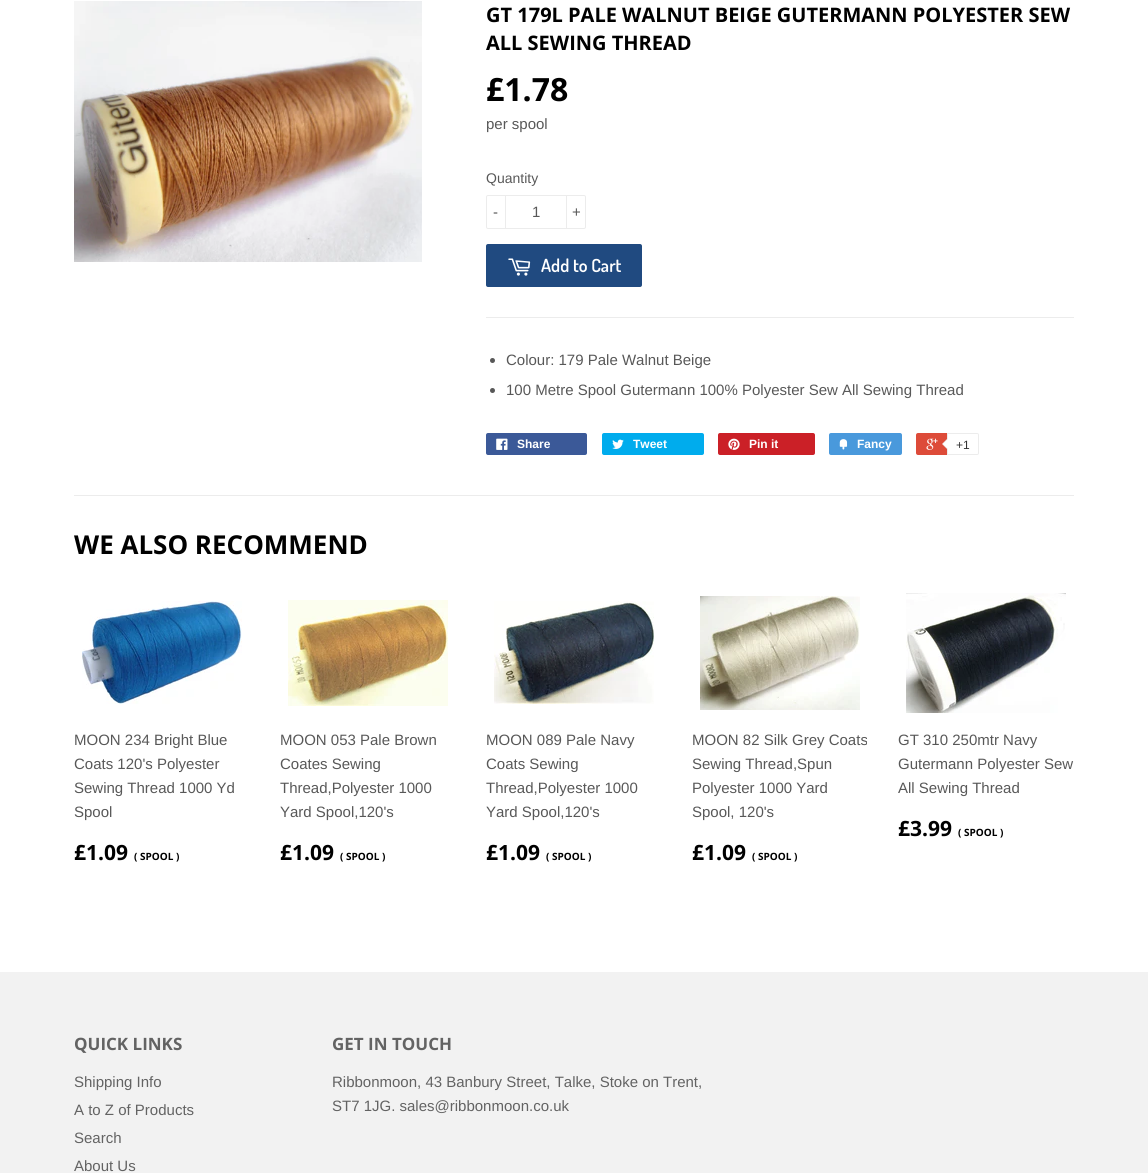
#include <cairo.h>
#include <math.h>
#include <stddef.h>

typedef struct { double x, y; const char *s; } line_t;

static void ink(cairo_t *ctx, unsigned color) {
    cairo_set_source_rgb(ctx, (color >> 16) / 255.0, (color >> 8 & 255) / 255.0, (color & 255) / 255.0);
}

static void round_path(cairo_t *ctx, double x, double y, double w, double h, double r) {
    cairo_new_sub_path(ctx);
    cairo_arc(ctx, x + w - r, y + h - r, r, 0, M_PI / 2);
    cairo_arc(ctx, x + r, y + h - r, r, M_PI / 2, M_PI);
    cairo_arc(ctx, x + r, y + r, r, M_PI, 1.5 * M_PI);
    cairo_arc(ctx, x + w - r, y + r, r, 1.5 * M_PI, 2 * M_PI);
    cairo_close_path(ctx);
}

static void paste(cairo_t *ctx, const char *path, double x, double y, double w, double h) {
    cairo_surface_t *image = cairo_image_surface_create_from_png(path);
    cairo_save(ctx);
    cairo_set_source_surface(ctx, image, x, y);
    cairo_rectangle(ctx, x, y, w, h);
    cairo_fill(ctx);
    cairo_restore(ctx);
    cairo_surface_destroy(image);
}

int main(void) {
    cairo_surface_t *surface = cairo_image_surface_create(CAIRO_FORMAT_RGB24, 1148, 1173);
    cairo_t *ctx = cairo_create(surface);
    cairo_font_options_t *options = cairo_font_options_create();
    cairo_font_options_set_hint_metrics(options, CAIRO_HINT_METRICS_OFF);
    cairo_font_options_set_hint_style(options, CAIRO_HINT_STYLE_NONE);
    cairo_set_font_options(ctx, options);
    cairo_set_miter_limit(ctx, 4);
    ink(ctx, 0xFFFFFF);
    cairo_paint(ctx);
    paste(ctx, "media/1.png", 74, 1, 348, 261);
    cairo_select_font_face(ctx, "Open Sans", CAIRO_FONT_SLANT_NORMAL, CAIRO_FONT_WEIGHT_BOLD);
    cairo_set_font_size(ctx, 20);
    ink(ctx, 0x000000);
    cairo_move_to(ctx, 486, 22);
    cairo_show_text(ctx, "GT 179L PALE WALNUT BEIGE GUTERMANN POLYESTER SEW");
    cairo_move_to(ctx, 486, 50);
    cairo_show_text(ctx, "ALL SEWING THREAD");
    cairo_set_font_size(ctx, 32);
    cairo_move_to(ctx, 486, 101);
    cairo_show_text(ctx, "£1.78");
    cairo_select_font_face(ctx, "Liberation Sans", CAIRO_FONT_SLANT_NORMAL, CAIRO_FONT_WEIGHT_NORMAL);
    cairo_set_font_size(ctx, 15);
    ink(ctx, 0x585858);
    cairo_move_to(ctx, 486, 129);
    cairo_show_text(ctx, "per spool");
    cairo_set_font_size(ctx, 14);
    cairo_move_to(ctx, 486, 183);
    cairo_show_text(ctx, "Quantity");
    round_path(ctx, 486.5, 195.5, 99, 33, 1.5);
    ink(ctx, 0xECECEC);
    cairo_set_line_width(ctx, 1);
    cairo_stroke(ctx);
    cairo_rectangle(ctx, 505, 195, 1, 34);
    cairo_fill(ctx);
    cairo_set_font_size(ctx, 15);
    ink(ctx, 0x585858);
    cairo_move_to(ctx, 493, 217);
    cairo_show_text(ctx, "-");
    cairo_move_to(ctx, 532, 217);
    cairo_show_text(ctx, "1");
    ink(ctx, 0xECECEC);
    cairo_rectangle(ctx, 566, 195, 1, 34);
    cairo_fill(ctx);
    ink(ctx, 0x585858);
    cairo_move_to(ctx, 572, 217);
    cairo_show_text(ctx, "+");
    ink(ctx, 0x204A80);
    round_path(ctx, 486, 244, 156, 43, 2);
    cairo_fill(ctx);
    paste(ctx, "media/2.png", 508, 258, 23, 18);
    cairo_select_font_face(ctx, "Dosis SemiBold", CAIRO_FONT_SLANT_NORMAL, CAIRO_FONT_WEIGHT_NORMAL);
    cairo_set_font_size(ctx, 18);
    ink(ctx, 0xFFFFFF);
    cairo_move_to(ctx, 541, 272);
    cairo_show_text(ctx, "Add to Cart");
    ink(ctx, 0xECECEC);
    cairo_rectangle(ctx, 486, 317, 588, 1);
    cairo_fill(ctx);
    ink(ctx, 0x585858);
    cairo_arc(ctx, 492.5, 360.5, 2.5, 0, 2 * M_PI);
    cairo_fill(ctx);
    cairo_select_font_face(ctx, "Liberation Sans", CAIRO_FONT_SLANT_NORMAL, CAIRO_FONT_WEIGHT_NORMAL);
    cairo_set_font_size(ctx, 15);
    cairo_move_to(ctx, 506, 365);
    cairo_show_text(ctx, "Colour: 179 Pale Walnut Beige");
    cairo_new_path(ctx);
    cairo_arc(ctx, 492.5, 390.5, 2.5, 0, 2 * M_PI);
    cairo_fill(ctx);
    cairo_move_to(ctx, 506, 395);
    cairo_show_text(ctx, "100 Metre Spool Gutermann 100% Polyester Sew All Sewing Thread");
    ink(ctx, 0x3B5998);
    round_path(ctx, 486, 433, 101, 22, 2);
    cairo_fill(ctx);
    paste(ctx, "media/3.png", 496, 438, 12, 12);
    cairo_select_font_face(ctx, "Liberation Sans", CAIRO_FONT_SLANT_NORMAL, CAIRO_FONT_WEIGHT_BOLD);
    cairo_set_font_size(ctx, 12);
    ink(ctx, 0xFFFFFF);
    cairo_move_to(ctx, 517, 448);
    cairo_show_text(ctx, "Share");
    ink(ctx, 0x00ACED);
    round_path(ctx, 602, 433, 102, 22, 2);
    cairo_fill(ctx);
    paste(ctx, "media/4.png", 612, 439, 12, 10);
    ink(ctx, 0xFFFFFF);
    cairo_move_to(ctx, 633, 448);
    cairo_show_text(ctx, "Tweet");
    ink(ctx, 0xCB2027);
    round_path(ctx, 718, 433, 97, 22, 2);
    cairo_fill(ctx);
    paste(ctx, "media/5.png", 728, 438, 12, 12);
    ink(ctx, 0xFFFFFF);
    cairo_move_to(ctx, 749, 448);
    cairo_show_text(ctx, "Pin it");
    ink(ctx, 0x4999DC);
    round_path(ctx, 829, 433, 73, 22, 2);
    cairo_fill(ctx);
    paste(ctx, "media/6.png", 839, 439, 9, 11);
    ink(ctx, 0xFFFFFF);
    cairo_move_to(ctx, 857, 448);
    cairo_show_text(ctx, "Fancy");
    ink(ctx, 0xDD4B39);
    round_path(ctx, 916, 433, 61, 22, 2);
    cairo_fill(ctx);
    paste(ctx, "media/7.png", 926, 438, 12, 12);
    ink(ctx, 0xFFFFFF);
    cairo_new_path(ctx);
    cairo_move_to(ctx, 947.5, 433.5);
    cairo_line_to(ctx, 977, 433.5);
    cairo_curve_to(ctx, 978, 433.5, 978.5, 434, 978.5, 435);
    cairo_line_to(ctx, 978.5, 453);
    cairo_curve_to(ctx, 978.5, 454, 978, 454.5, 977, 454.5);
    cairo_line_to(ctx, 947.5, 454.5);
    cairo_close_path(ctx);
    cairo_fill_preserve(ctx);
    ink(ctx, 0xECECEC);
    cairo_stroke(ctx);
    cairo_new_path(ctx);
    cairo_move_to(ctx, 948, 438);
    cairo_line_to(ctx, 948, 450);
    cairo_line_to(ctx, 942, 444);
    cairo_close_path(ctx);
    cairo_fill(ctx);
    ink(ctx, 0xFFFFFF);
    cairo_new_path(ctx);
    cairo_move_to(ctx, 949, 438);
    cairo_line_to(ctx, 949, 450);
    cairo_line_to(ctx, 943, 444);
    cairo_close_path(ctx);
    cairo_fill(ctx);
    cairo_select_font_face(ctx, "Liberation Sans", CAIRO_FONT_SLANT_NORMAL, CAIRO_FONT_WEIGHT_NORMAL);
    ink(ctx, 0x333333);
    cairo_move_to(ctx, 956, 449);
    cairo_show_text(ctx, "+1");
    ink(ctx, 0xECECEC);
    cairo_rectangle(ctx, 74, 495, 1000, 1);
    cairo_fill(ctx);
    cairo_select_font_face(ctx, "Open Sans", CAIRO_FONT_SLANT_NORMAL, CAIRO_FONT_WEIGHT_BOLD);
    cairo_set_font_size(ctx, 26);
    ink(ctx, 0x000000);
    cairo_move_to(ctx, 74, 554);
    cairo_show_text(ctx, "WE ALSO RECOMMEND");
    paste(ctx, "media/8.png", 82, 601, 160, 103);
    cairo_select_font_face(ctx, "Liberation Sans", CAIRO_FONT_SLANT_NORMAL, CAIRO_FONT_WEIGHT_NORMAL);
    cairo_set_font_size(ctx, 15);
    ink(ctx, 0x585858);
    {
        static const line_t items[] = {
            {74, 745, "MOON 234 Bright Blue"},
            {74, 769, "Coats 120's Polyester"},
            {74, 793, "Sewing Thread 1000 Yd"},
            {74, 817, "Spool"},
        };
        for (size_t i = 0; i < sizeof items / sizeof *items; i++) {
            cairo_move_to(ctx, items[i].x, items[i].y);
            cairo_show_text(ctx, items[i].s);
        }
    }
    cairo_select_font_face(ctx, "Open Sans", CAIRO_FONT_SLANT_NORMAL, CAIRO_FONT_WEIGHT_BOLD);
    cairo_set_font_size(ctx, 21);
    ink(ctx, 0x000000);
    cairo_move_to(ctx, 74, 860);
    cairo_show_text(ctx, "£1.09");
    cairo_set_font_size(ctx, 10);
    cairo_move_to(ctx, 134, 860);
    cairo_show_text(ctx, "( SPOOL )");
    paste(ctx, "media/9.png", 288, 600, 160, 106);
    cairo_select_font_face(ctx, "Liberation Sans", CAIRO_FONT_SLANT_NORMAL, CAIRO_FONT_WEIGHT_NORMAL);
    cairo_set_font_size(ctx, 15);
    ink(ctx, 0x585858);
    {
        static const line_t items[] = {
            {280, 745, "MOON 053 Pale Brown"},
            {280, 769, "Coates Sewing"},
            {280, 793, "Thread,Polyester 1000"},
            {280, 817, "Yard Spool,120's"},
        };
        for (size_t i = 0; i < sizeof items / sizeof *items; i++) {
            cairo_move_to(ctx, items[i].x, items[i].y);
            cairo_show_text(ctx, items[i].s);
        }
    }
    cairo_select_font_face(ctx, "Open Sans", CAIRO_FONT_SLANT_NORMAL, CAIRO_FONT_WEIGHT_BOLD);
    cairo_set_font_size(ctx, 21);
    ink(ctx, 0x000000);
    cairo_move_to(ctx, 280, 860);
    cairo_show_text(ctx, "£1.09");
    cairo_set_font_size(ctx, 10);
    cairo_move_to(ctx, 340, 860);
    cairo_show_text(ctx, "( SPOOL )");
    paste(ctx, "media/10.png", 494, 601, 160, 103);
    cairo_select_font_face(ctx, "Liberation Sans", CAIRO_FONT_SLANT_NORMAL, CAIRO_FONT_WEIGHT_NORMAL);
    cairo_set_font_size(ctx, 15);
    ink(ctx, 0x585858);
    {
        static const line_t items[] = {
            {486, 745, "MOON 089 Pale Navy"},
            {486, 769, "Coats Sewing"},
            {486, 793, "Thread,Polyester 1000"},
            {486, 817, "Yard Spool,120's"},
        };
        for (size_t i = 0; i < sizeof items / sizeof *items; i++) {
            cairo_move_to(ctx, items[i].x, items[i].y);
            cairo_show_text(ctx, items[i].s);
        }
    }
    cairo_select_font_face(ctx, "Open Sans", CAIRO_FONT_SLANT_NORMAL, CAIRO_FONT_WEIGHT_BOLD);
    cairo_set_font_size(ctx, 21);
    ink(ctx, 0x000000);
    cairo_move_to(ctx, 486, 860);
    cairo_show_text(ctx, "£1.09");
    cairo_set_font_size(ctx, 10);
    cairo_move_to(ctx, 546, 860);
    cairo_show_text(ctx, "( SPOOL )");
    paste(ctx, "media/11.png", 700, 596, 160, 114);
    cairo_select_font_face(ctx, "Liberation Sans", CAIRO_FONT_SLANT_NORMAL, CAIRO_FONT_WEIGHT_NORMAL);
    cairo_set_font_size(ctx, 15);
    ink(ctx, 0x585858);
    {
        static const line_t items[] = {
            {692, 745, "MOON 82 Silk Grey Coats"},
            {692, 769, "Sewing Thread,Spun"},
            {692, 793, "Polyester 1000 Yard"},
            {692, 817, "Spool, 120's"},
        };
        for (size_t i = 0; i < sizeof items / sizeof *items; i++) {
            cairo_move_to(ctx, items[i].x, items[i].y);
            cairo_show_text(ctx, items[i].s);
        }
    }
    cairo_select_font_face(ctx, "Open Sans", CAIRO_FONT_SLANT_NORMAL, CAIRO_FONT_WEIGHT_BOLD);
    cairo_set_font_size(ctx, 21);
    ink(ctx, 0x000000);
    cairo_move_to(ctx, 692, 860);
    cairo_show_text(ctx, "£1.09");
    cairo_set_font_size(ctx, 10);
    cairo_move_to(ctx, 752, 860);
    cairo_show_text(ctx, "( SPOOL )");
    paste(ctx, "media/12.png", 906, 593, 160, 120);
    cairo_select_font_face(ctx, "Liberation Sans", CAIRO_FONT_SLANT_NORMAL, CAIRO_FONT_WEIGHT_NORMAL);
    cairo_set_font_size(ctx, 15);
    ink(ctx, 0x585858);
    {
        static const line_t items[] = {
            {898, 745, "GT 310 250mtr Navy"},
            {898, 769, "Gutermann Polyester Sew"},
            {898, 793, "All Sewing Thread"},
        };
        for (size_t i = 0; i < sizeof items / sizeof *items; i++) {
            cairo_move_to(ctx, items[i].x, items[i].y);
            cairo_show_text(ctx, items[i].s);
        }
    }
    cairo_select_font_face(ctx, "Open Sans", CAIRO_FONT_SLANT_NORMAL, CAIRO_FONT_WEIGHT_BOLD);
    cairo_set_font_size(ctx, 21);
    ink(ctx, 0x000000);
    cairo_move_to(ctx, 898, 836);
    cairo_show_text(ctx, "£3.99");
    cairo_set_font_size(ctx, 10);
    cairo_move_to(ctx, 958, 836);
    cairo_show_text(ctx, "( SPOOL )");
    ink(ctx, 0xF2F2F2);
    cairo_rectangle(ctx, 0, 972, 1148, 201);
    cairo_fill(ctx);
    cairo_set_font_size(ctx, 17);
    ink(ctx, 0x636363);
    cairo_move_to(ctx, 74, 1050);
    cairo_show_text(ctx, "QUICK LINKS");
    cairo_select_font_face(ctx, "Liberation Sans", CAIRO_FONT_SLANT_NORMAL, CAIRO_FONT_WEIGHT_NORMAL);
    cairo_set_font_size(ctx, 15);
    {
        static const line_t items[] = {
            {74, 1087, "Shipping Info"},
            {74, 1115, "A to Z of Products"},
            {74, 1143, "Search"},
            {74, 1171, "About Us"},
        };
        for (size_t i = 0; i < sizeof items / sizeof *items; i++) {
            cairo_move_to(ctx, items[i].x, items[i].y);
            cairo_show_text(ctx, items[i].s);
        }
    }
    cairo_select_font_face(ctx, "Open Sans", CAIRO_FONT_SLANT_NORMAL, CAIRO_FONT_WEIGHT_BOLD);
    cairo_set_font_size(ctx, 17);
    cairo_move_to(ctx, 332, 1050);
    cairo_show_text(ctx, "GET IN TOUCH");
    cairo_select_font_face(ctx, "Liberation Sans", CAIRO_FONT_SLANT_NORMAL, CAIRO_FONT_WEIGHT_NORMAL);
    cairo_set_font_size(ctx, 15);
    cairo_move_to(ctx, 332, 1087);
    cairo_show_text(ctx, "Ribbonmoon, 43 Banbury Street, Talke, Stoke on Trent,");
    cairo_move_to(ctx, 332, 1111);
    cairo_show_text(ctx, "ST7 1JG. sales@ribbonmoon.co.uk");
    cairo_surface_write_to_png(surface, "image.png");
    cairo_font_options_destroy(options);
    cairo_destroy(ctx);
    cairo_surface_destroy(surface);
    return 0;
}
